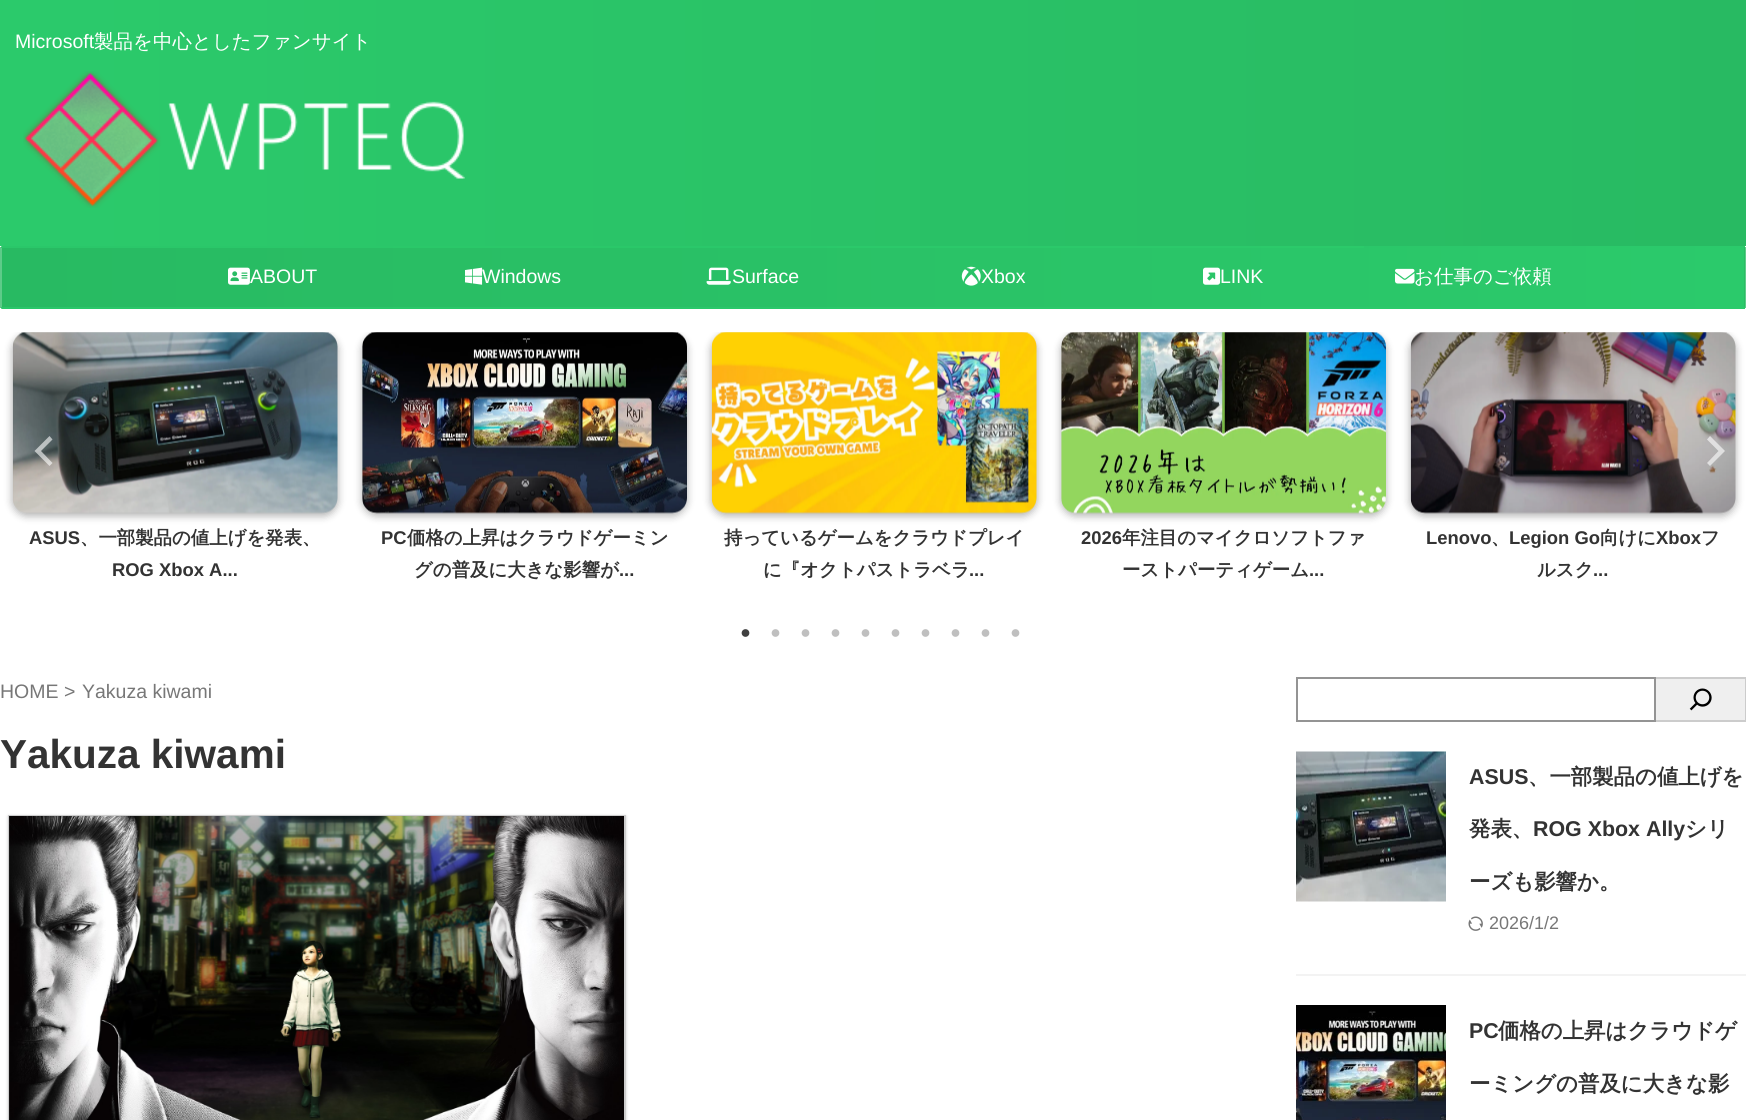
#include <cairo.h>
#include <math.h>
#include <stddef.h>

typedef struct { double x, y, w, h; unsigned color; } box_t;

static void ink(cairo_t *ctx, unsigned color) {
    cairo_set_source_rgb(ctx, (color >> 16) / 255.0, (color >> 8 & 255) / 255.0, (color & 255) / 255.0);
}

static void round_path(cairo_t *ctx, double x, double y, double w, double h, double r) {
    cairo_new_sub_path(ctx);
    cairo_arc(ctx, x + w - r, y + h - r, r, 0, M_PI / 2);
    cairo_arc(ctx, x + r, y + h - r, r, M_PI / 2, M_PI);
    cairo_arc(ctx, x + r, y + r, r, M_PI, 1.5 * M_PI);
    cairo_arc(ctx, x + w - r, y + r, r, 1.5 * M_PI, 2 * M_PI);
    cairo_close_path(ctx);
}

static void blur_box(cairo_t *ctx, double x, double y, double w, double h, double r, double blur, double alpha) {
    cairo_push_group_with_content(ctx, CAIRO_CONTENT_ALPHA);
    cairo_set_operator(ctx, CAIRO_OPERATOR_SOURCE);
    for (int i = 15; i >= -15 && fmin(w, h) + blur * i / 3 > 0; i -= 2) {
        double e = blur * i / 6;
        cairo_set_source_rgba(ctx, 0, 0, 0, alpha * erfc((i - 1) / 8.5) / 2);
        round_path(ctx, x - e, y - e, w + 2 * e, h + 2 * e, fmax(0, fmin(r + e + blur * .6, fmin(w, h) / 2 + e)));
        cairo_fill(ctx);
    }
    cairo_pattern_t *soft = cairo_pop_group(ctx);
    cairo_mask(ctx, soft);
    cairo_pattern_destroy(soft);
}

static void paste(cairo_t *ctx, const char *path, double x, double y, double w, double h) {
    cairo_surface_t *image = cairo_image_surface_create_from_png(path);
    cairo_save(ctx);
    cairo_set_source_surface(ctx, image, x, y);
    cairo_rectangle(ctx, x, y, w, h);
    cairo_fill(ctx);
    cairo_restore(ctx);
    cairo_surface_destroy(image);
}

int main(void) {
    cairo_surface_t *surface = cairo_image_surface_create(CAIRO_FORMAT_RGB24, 1746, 1120);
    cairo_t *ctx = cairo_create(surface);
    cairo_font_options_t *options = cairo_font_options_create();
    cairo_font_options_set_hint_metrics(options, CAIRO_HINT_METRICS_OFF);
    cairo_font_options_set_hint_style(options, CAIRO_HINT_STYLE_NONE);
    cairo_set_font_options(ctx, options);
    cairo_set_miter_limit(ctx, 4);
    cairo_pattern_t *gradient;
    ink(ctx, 0xFFFFFF);
    cairo_paint(ctx);
    gradient = cairo_pattern_create_linear(1746, 123, 0, 123);
    cairo_pattern_add_color_stop_rgba(gradient, 0, 0.157, 0.729, 0.384, 1);
    cairo_pattern_add_color_stop_rgba(gradient, 1, 0.169, 0.792, 0.42, 1);
    cairo_set_source(ctx, gradient);
    cairo_pattern_destroy(gradient);
    cairo_rectangle(ctx, 0, 0, 1746, 246);
    cairo_fill(ctx);
    cairo_select_font_face(ctx, "Liberation Sans", CAIRO_FONT_SLANT_NORMAL, CAIRO_FONT_WEIGHT_NORMAL);
    cairo_set_font_size(ctx, 19.5);
    ink(ctx, 0xFFFFFF);
    cairo_move_to(ctx, 15, 48);
    cairo_show_text(ctx, "Microsoft");
    cairo_select_font_face(ctx, "WenQuanYi Zen Hei Medium", CAIRO_FONT_SLANT_NORMAL, CAIRO_FONT_WEIGHT_NORMAL);
    cairo_move_to(ctx, 94, 48);
    cairo_show_text(ctx, "製品を中心としたファンサイト");
    paste(ctx, "media/1.png", 23, 71, 442, 137);
    gradient = cairo_pattern_create_linear(1745, 278, 1.5, 277);
    cairo_pattern_add_color_stop_rgba(gradient, 0, 0.169, 0.792, 0.42, 1);
    cairo_pattern_add_color_stop_rgba(gradient, 1, 0.157, 0.729, 0.384, 1);
    cairo_set_source(ctx, gradient);
    cairo_pattern_destroy(gradient);
    cairo_rectangle(ctx, 2, 246, 1743, 63);
    cairo_fill(ctx);
    cairo_set_source_rgba(ctx, 0.169, 0.792, 0.42, 0.75);
    cairo_rectangle(ctx, 1, 246, 1363, 2);
    cairo_fill(ctx);
    cairo_set_source_rgba(ctx, 0.157, 0.729, 0.384, 0.75);
    cairo_rectangle(ctx, 1744, 247, 2, 61);
    cairo_fill(ctx);
    cairo_set_source_rgba(ctx, 0.169, 0.792, 0.42, 0.75);
    cairo_rectangle(ctx, 1, 307, 1744, 2);
    cairo_fill(ctx);
    cairo_set_source_rgba(ctx, 0.157, 0.729, 0.384, 0.75);
    cairo_rectangle(ctx, 0, 247, 2, 61);
    cairo_fill(ctx);
    paste(ctx, "media/2.png", 228, 267, 22, 18);
    cairo_select_font_face(ctx, "Liberation Sans", CAIRO_FONT_SLANT_NORMAL, CAIRO_FONT_WEIGHT_NORMAL);
    ink(ctx, 0xFFFFFF);
    cairo_move_to(ctx, 250, 283);
    cairo_show_text(ctx, "ABOUT");
    paste(ctx, "media/3.png", 465, 267, 18, 18);
    cairo_move_to(ctx, 482, 283);
    cairo_show_text(ctx, "Windows");
    paste(ctx, "media/4.png", 706, 267, 25, 18);
    cairo_move_to(ctx, 732, 283);
    cairo_show_text(ctx, "Surface");
    paste(ctx, "media/5.png", 961, 266, 20, 20);
    cairo_move_to(ctx, 981, 283);
    cairo_show_text(ctx, "Xbox");
    paste(ctx, "media/6.png", 1203, 267, 18, 18);
    cairo_move_to(ctx, 1220, 283);
    cairo_show_text(ctx, "LINK");
    paste(ctx, "media/7.png", 1395, 268, 20, 16);
    cairo_select_font_face(ctx, "WenQuanYi Zen Hei Medium", CAIRO_FONT_SLANT_NORMAL, CAIRO_FONT_WEIGHT_NORMAL);
    cairo_move_to(ctx, 1414, 283);
    cairo_show_text(ctx, "お仕事のご依頼");
    cairo_save(ctx);
    cairo_rectangle(ctx, 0, 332, 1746, 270);
    cairo_clip(ctx);
    ink(ctx, 0x000000);
    blur_box(ctx, 12, 335, 326, 181, 15, 4, 0.3);
    cairo_restore(ctx);
    paste(ctx, "media/8.png", 12, 332, 326, 182);
    cairo_set_source_rgba(ctx, 1, 1, 1, 0.6);
    cairo_new_path(ctx);
    cairo_move_to(ctx, 41, 451);
    cairo_line_to(ctx, 52.5, 463);
    cairo_line_to(ctx, 49.5, 466);
    cairo_line_to(ctx, 34.5, 451);
    cairo_line_to(ctx, 49.5, 436);
    cairo_line_to(ctx, 52.5, 439.5);
    cairo_close_path(ctx);
    cairo_fill(ctx);
    cairo_save(ctx);
    cairo_rectangle(ctx, 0, 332, 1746, 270);
    cairo_clip(ctx);
    ink(ctx, 0x000000);
    blur_box(ctx, 1410, 335, 326, 181, 15, 4, 0.3);
    cairo_restore(ctx);
    paste(ctx, "media/12.png", 1410, 332, 326, 182);
    cairo_new_path(ctx);
    cairo_move_to(ctx, 1718.5, 451);
    cairo_line_to(ctx, 1707, 439.5);
    cairo_line_to(ctx, 1710, 436);
    cairo_line_to(ctx, 1725, 451);
    cairo_line_to(ctx, 1710, 466);
    cairo_line_to(ctx, 1707, 463);
    cairo_close_path(ctx);
    cairo_fill(ctx);
    cairo_select_font_face(ctx, "Liberation Sans", CAIRO_FONT_SLANT_NORMAL, CAIRO_FONT_WEIGHT_BOLD);
    cairo_set_font_size(ctx, 18.4);
    ink(ctx, 0x333333);
    cairo_move_to(ctx, 29, 544);
    cairo_show_text(ctx, "ASUS");
    cairo_select_font_face(ctx, "WenQuanYi Zen Hei", CAIRO_FONT_SLANT_NORMAL, CAIRO_FONT_WEIGHT_BOLD);
    cairo_move_to(ctx, 80, 544);
    cairo_show_text(ctx, "、一部製品の値上げを発表、");
    cairo_select_font_face(ctx, "Liberation Sans", CAIRO_FONT_SLANT_NORMAL, CAIRO_FONT_WEIGHT_BOLD);
    cairo_move_to(ctx, 112, 576);
    cairo_show_text(ctx, "ROG Xbox A...");
    cairo_save(ctx);
    cairo_rectangle(ctx, 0, 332, 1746, 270);
    cairo_clip(ctx);
    ink(ctx, 0x000000);
    blur_box(ctx, 362, 335, 325, 181, 15, 4, 0.3);
    cairo_restore(ctx);
    paste(ctx, "media/9.png", 362, 332, 325, 182);
    cairo_move_to(ctx, 381, 544);
    cairo_show_text(ctx, "PC");
    cairo_select_font_face(ctx, "WenQuanYi Zen Hei", CAIRO_FONT_SLANT_NORMAL, CAIRO_FONT_WEIGHT_BOLD);
    cairo_move_to(ctx, 407, 544);
    cairo_show_text(ctx, "価格の上昇はクラウドゲーミン");
    cairo_move_to(ctx, 414, 576);
    cairo_show_text(ctx, "グの普及に大きな影響が");
    cairo_select_font_face(ctx, "Liberation Sans", CAIRO_FONT_SLANT_NORMAL, CAIRO_FONT_WEIGHT_BOLD);
    cairo_move_to(ctx, 619, 576);
    cairo_show_text(ctx, "...");
    cairo_save(ctx);
    cairo_rectangle(ctx, 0, 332, 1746, 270);
    cairo_clip(ctx);
    ink(ctx, 0x000000);
    blur_box(ctx, 711, 335, 326, 181, 15, 4, 0.3);
    cairo_restore(ctx);
    paste(ctx, "media/10.png", 711, 332, 326, 182);
    cairo_select_font_face(ctx, "WenQuanYi Zen Hei", CAIRO_FONT_SLANT_NORMAL, CAIRO_FONT_WEIGHT_BOLD);
    cairo_move_to(ctx, 724, 544);
    cairo_show_text(ctx, "持っているゲームをクラウドプレイ");
    cairo_move_to(ctx, 763, 576);
    cairo_show_text(ctx, "に『オクトパストラベラ");
    cairo_select_font_face(ctx, "Liberation Sans", CAIRO_FONT_SLANT_NORMAL, CAIRO_FONT_WEIGHT_BOLD);
    cairo_move_to(ctx, 969, 576);
    cairo_show_text(ctx, "...");
    cairo_save(ctx);
    cairo_rectangle(ctx, 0, 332, 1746, 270);
    cairo_clip(ctx);
    ink(ctx, 0x000000);
    blur_box(ctx, 1061, 335, 325, 181, 15, 4, 0.3);
    cairo_restore(ctx);
    paste(ctx, "media/11.png", 1061, 332, 325, 182);
    cairo_move_to(ctx, 1081, 544);
    cairo_show_text(ctx, "2026");
    cairo_select_font_face(ctx, "WenQuanYi Zen Hei", CAIRO_FONT_SLANT_NORMAL, CAIRO_FONT_WEIGHT_BOLD);
    cairo_move_to(ctx, 1122, 544);
    cairo_show_text(ctx, "年注目のマイクロソフトファ");
    cairo_move_to(ctx, 1122, 576);
    cairo_show_text(ctx, "ーストパーティゲーム");
    cairo_select_font_face(ctx, "Liberation Sans", CAIRO_FONT_SLANT_NORMAL, CAIRO_FONT_WEIGHT_BOLD);
    cairo_move_to(ctx, 1309, 576);
    cairo_show_text(ctx, "...");
    cairo_move_to(ctx, 1426, 544);
    cairo_show_text(ctx, "Lenovo");
    cairo_select_font_face(ctx, "WenQuanYi Zen Hei", CAIRO_FONT_SLANT_NORMAL, CAIRO_FONT_WEIGHT_BOLD);
    cairo_move_to(ctx, 1491, 544);
    cairo_show_text(ctx, "、");
    cairo_select_font_face(ctx, "Liberation Sans", CAIRO_FONT_SLANT_NORMAL, CAIRO_FONT_WEIGHT_BOLD);
    cairo_move_to(ctx, 1509, 544);
    cairo_show_text(ctx, "Legion Go");
    cairo_select_font_face(ctx, "WenQuanYi Zen Hei", CAIRO_FONT_SLANT_NORMAL, CAIRO_FONT_WEIGHT_BOLD);
    cairo_move_to(ctx, 1600, 544);
    cairo_show_text(ctx, "向けに");
    cairo_select_font_face(ctx, "Liberation Sans", CAIRO_FONT_SLANT_NORMAL, CAIRO_FONT_WEIGHT_BOLD);
    cairo_move_to(ctx, 1656, 544);
    cairo_show_text(ctx, "Xbox");
    cairo_select_font_face(ctx, "WenQuanYi Zen Hei", CAIRO_FONT_SLANT_NORMAL, CAIRO_FONT_WEIGHT_BOLD);
    cairo_move_to(ctx, 1701, 544);
    cairo_show_text(ctx, "フ");
    cairo_move_to(ctx, 1537, 576);
    cairo_show_text(ctx, "ルスク");
    cairo_select_font_face(ctx, "Liberation Sans", CAIRO_FONT_SLANT_NORMAL, CAIRO_FONT_WEIGHT_BOLD);
    cairo_move_to(ctx, 1593, 576);
    cairo_show_text(ctx, "...");
    paste(ctx, "media/13.png", 741, 629, 9, 8);
    paste(ctx, "media/14.png", 771, 629, 9, 8);
    paste(ctx, "media/14.png", 801, 629, 9, 8);
    paste(ctx, "media/14.png", 831, 629, 9, 8);
    paste(ctx, "media/14.png", 861, 629, 9, 8);
    paste(ctx, "media/14.png", 891, 629, 9, 8);
    paste(ctx, "media/14.png", 921, 629, 9, 8);
    paste(ctx, "media/14.png", 951, 629, 9, 8);
    paste(ctx, "media/14.png", 981, 629, 9, 8);
    paste(ctx, "media/14.png", 1011, 629, 9, 8);
    cairo_select_font_face(ctx, "Liberation Sans", CAIRO_FONT_SLANT_NORMAL, CAIRO_FONT_WEIGHT_NORMAL);
    cairo_set_font_size(ctx, 19.5);
    ink(ctx, 0x777777);
    cairo_move_to(ctx, 0, 698);
    cairo_show_text(ctx, "HOME >");
    cairo_move_to(ctx, 82, 698);
    cairo_show_text(ctx, "Yakuza kiwami");
    cairo_select_font_face(ctx, "Liberation Sans", CAIRO_FONT_SLANT_NORMAL, CAIRO_FONT_WEIGHT_BOLD);
    cairo_set_font_size(ctx, 40.5);
    ink(ctx, 0x333333);
    cairo_move_to(ctx, 0, 768);
    cairo_show_text(ctx, "Yakuza kiwami");
    ink(ctx, 0x000000);
    blur_box(ctx, 8, 816, 618, 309, 0, 1.5, 0.2);
    cairo_rectangle(ctx, 9, 816, 616, 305);
    ink(ctx, 0xCCCCCC);
    cairo_stroke(ctx);
    paste(ctx, "media/15.png", 9, 816, 615, 304);
    cairo_rectangle(ctx, 1297, 678, 358, 43);
    ink(ctx, 0x949494);
    cairo_stroke(ctx);
    {
        static const box_t items[] = {
            {1656, 679, 89, 41, 0xEFEFEF},
            {1656, 677, 90, 2, 0xCCCCCC},
            {1745, 677, 1, 45, 0xCCCCCC},
            {1656, 720, 90, 2, 0xCCCCCC},
        };
        for (size_t i = 0; i < sizeof items / sizeof *items; i++) {
            ink(ctx, items[i].color);
            cairo_rectangle(ctx, items[i].x, items[i].y, items[i].w, items[i].h);
            cairo_fill(ctx);
        }
    }
    paste(ctx, "media/16.png", 1689, 688, 23, 23);
    ink(ctx, 0xF3F3F3);
    cairo_rectangle(ctx, 1296, 974, 450, 2);
    cairo_fill(ctx);
    paste(ctx, "media/17.png", 1296, 751, 150, 151);
    cairo_set_font_size(ctx, 21.4);
    ink(ctx, 0x333333);
    cairo_move_to(ctx, 1469, 784);
    cairo_show_text(ctx, "ASUS");
    cairo_select_font_face(ctx, "WenQuanYi Zen Hei", CAIRO_FONT_SLANT_NORMAL, CAIRO_FONT_WEIGHT_BOLD);
    cairo_move_to(ctx, 1528, 784);
    cairo_show_text(ctx, "、一部製品の値上げを");
    cairo_move_to(ctx, 1469, 836);
    cairo_show_text(ctx, "発表、");
    cairo_select_font_face(ctx, "Liberation Sans", CAIRO_FONT_SLANT_NORMAL, CAIRO_FONT_WEIGHT_BOLD);
    cairo_move_to(ctx, 1533, 836);
    cairo_show_text(ctx, "ROG Xbox Ally");
    cairo_select_font_face(ctx, "WenQuanYi Zen Hei", CAIRO_FONT_SLANT_NORMAL, CAIRO_FONT_WEIGHT_BOLD);
    cairo_move_to(ctx, 1685, 836);
    cairo_show_text(ctx, "シリ");
    cairo_move_to(ctx, 1469, 889);
    cairo_show_text(ctx, "ーズも影響か。");
    paste(ctx, "media/18.png", 1468, 916, 15, 15);
    cairo_select_font_face(ctx, "Liberation Sans", CAIRO_FONT_SLANT_NORMAL, CAIRO_FONT_WEIGHT_NORMAL);
    cairo_set_font_size(ctx, 18);
    ink(ctx, 0x777777);
    cairo_move_to(ctx, 1489, 929);
    cairo_show_text(ctx, "2026/1/2");
    paste(ctx, "media/19.png", 1296, 1005, 150, 115);
    cairo_select_font_face(ctx, "Liberation Sans", CAIRO_FONT_SLANT_NORMAL, CAIRO_FONT_WEIGHT_BOLD);
    cairo_set_font_size(ctx, 21.4);
    ink(ctx, 0x333333);
    cairo_move_to(ctx, 1469, 1038);
    cairo_show_text(ctx, "PC");
    cairo_select_font_face(ctx, "WenQuanYi Zen Hei", CAIRO_FONT_SLANT_NORMAL, CAIRO_FONT_WEIGHT_BOLD);
    cairo_move_to(ctx, 1498, 1038);
    cairo_show_text(ctx, "価格の上昇はクラウドゲ");
    cairo_move_to(ctx, 1469, 1091);
    cairo_show_text(ctx, "ーミングの普及に大きな影");
    cairo_surface_write_to_png(surface, "image.png");
    cairo_font_options_destroy(options);
    cairo_destroy(ctx);
    cairo_surface_destroy(surface);
    return 0;
}
